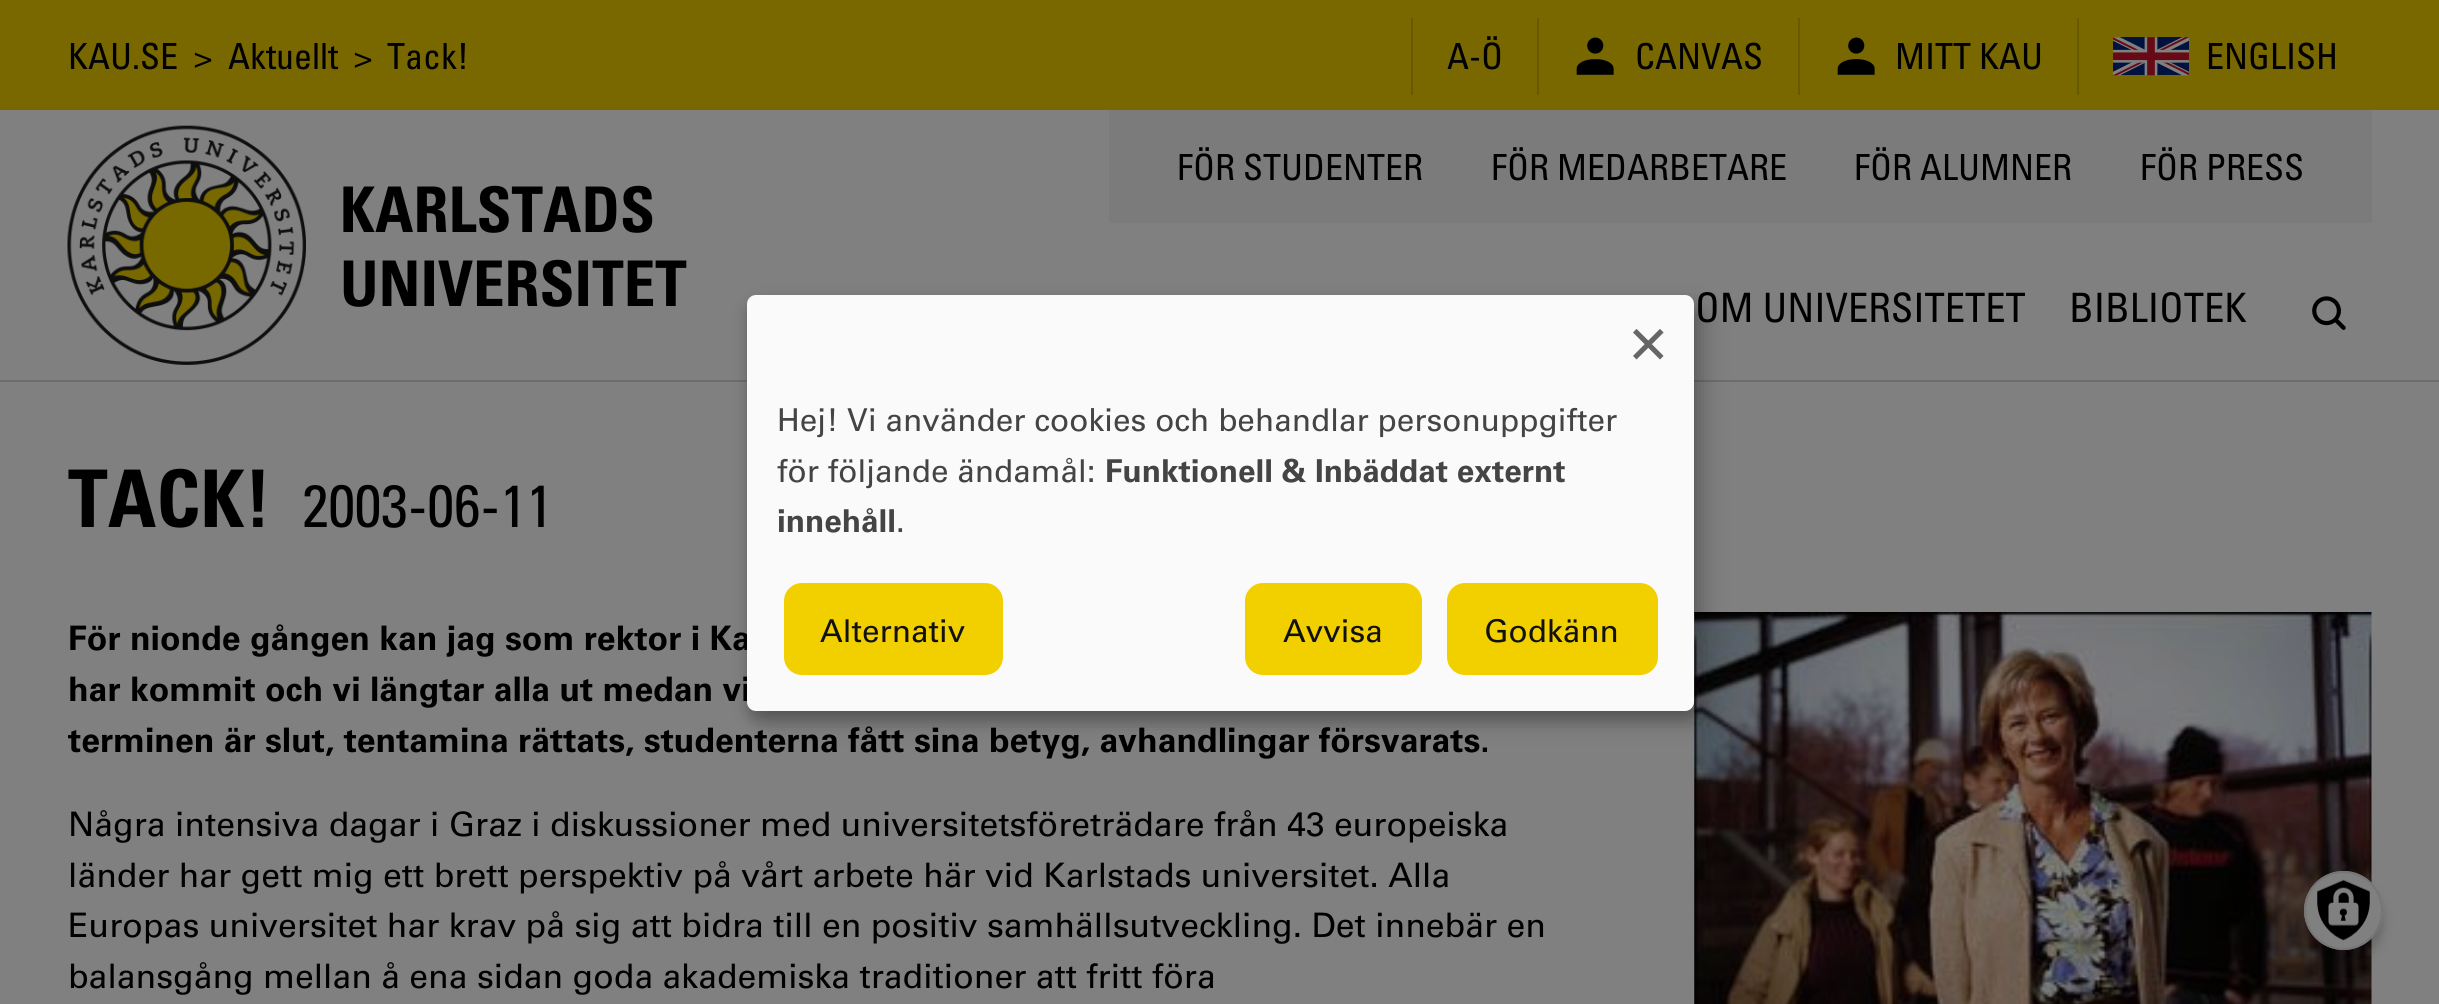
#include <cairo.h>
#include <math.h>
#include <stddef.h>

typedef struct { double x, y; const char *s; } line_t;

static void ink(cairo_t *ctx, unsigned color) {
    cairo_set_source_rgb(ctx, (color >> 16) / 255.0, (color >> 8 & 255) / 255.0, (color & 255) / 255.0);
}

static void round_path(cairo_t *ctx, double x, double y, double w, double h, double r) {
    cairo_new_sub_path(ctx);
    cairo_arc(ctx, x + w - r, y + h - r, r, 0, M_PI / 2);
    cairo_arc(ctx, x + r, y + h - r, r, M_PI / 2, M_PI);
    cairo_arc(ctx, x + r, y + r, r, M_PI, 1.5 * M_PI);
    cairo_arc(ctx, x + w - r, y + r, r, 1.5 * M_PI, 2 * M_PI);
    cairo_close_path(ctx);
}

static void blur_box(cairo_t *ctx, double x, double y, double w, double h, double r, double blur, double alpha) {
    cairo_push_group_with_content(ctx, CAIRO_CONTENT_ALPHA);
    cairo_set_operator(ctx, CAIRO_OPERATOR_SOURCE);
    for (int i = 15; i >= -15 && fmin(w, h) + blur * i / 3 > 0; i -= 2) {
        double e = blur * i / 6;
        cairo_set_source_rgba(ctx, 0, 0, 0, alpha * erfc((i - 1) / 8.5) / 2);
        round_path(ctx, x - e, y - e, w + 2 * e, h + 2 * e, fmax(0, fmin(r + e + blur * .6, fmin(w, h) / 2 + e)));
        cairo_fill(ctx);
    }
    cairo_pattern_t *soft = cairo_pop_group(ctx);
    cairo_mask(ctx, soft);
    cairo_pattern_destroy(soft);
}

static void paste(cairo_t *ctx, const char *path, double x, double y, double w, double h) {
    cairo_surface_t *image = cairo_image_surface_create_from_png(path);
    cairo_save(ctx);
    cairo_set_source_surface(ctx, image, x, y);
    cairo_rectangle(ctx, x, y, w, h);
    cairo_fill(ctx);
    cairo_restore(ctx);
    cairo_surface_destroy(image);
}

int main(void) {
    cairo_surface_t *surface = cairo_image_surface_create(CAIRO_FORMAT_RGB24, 2439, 1004);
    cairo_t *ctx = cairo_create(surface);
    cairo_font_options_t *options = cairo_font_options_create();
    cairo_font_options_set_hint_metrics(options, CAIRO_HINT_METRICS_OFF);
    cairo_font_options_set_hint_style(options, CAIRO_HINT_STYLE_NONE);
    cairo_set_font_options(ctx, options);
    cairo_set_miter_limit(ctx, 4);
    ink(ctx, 0x808080);
    cairo_paint(ctx);
    ink(ctx, 0x796800);
    cairo_rectangle(ctx, 0, 0, 2439, 110);
    cairo_fill(ctx);
    cairo_select_font_face(ctx, "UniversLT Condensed", CAIRO_FONT_SLANT_NORMAL, CAIRO_FONT_WEIGHT_NORMAL);
    cairo_set_font_size(ctx, 36);
    ink(ctx, 0x000000);
    {
        static const line_t items[] = {
            {68, 69, "KAU.SE"},
            {194, 69, ">"},
            {228, 69, "Aktuellt"},
            {354, 69, ">"},
            {387, 69, "Tack!"},
        };
        for (size_t i = 0; i < sizeof items / sizeof *items; i++) {
            cairo_move_to(ctx, items[i].x, items[i].y);
            cairo_show_text(ctx, items[i].s);
        }
    }
    ink(ctx, 0x675900);
    cairo_rectangle(ctx, 1411, 18, 2, 77);
    cairo_fill(ctx);
    ink(ctx, 0x000000);
    cairo_move_to(ctx, 1447, 69);
    cairo_show_text(ctx, "A-Ö");
    ink(ctx, 0x675900);
    cairo_rectangle(ctx, 1537, 18, 2, 77);
    cairo_fill(ctx);
    paste(ctx, "media/1.png", 1576, 37, 38, 38);
    ink(ctx, 0x000000);
    cairo_move_to(ctx, 1635, 69);
    cairo_show_text(ctx, "CANVAS");
    ink(ctx, 0x675900);
    cairo_rectangle(ctx, 1798, 18, 2, 77);
    cairo_fill(ctx);
    paste(ctx, "media/1.png", 1837, 37, 38, 38);
    ink(ctx, 0x000000);
    cairo_move_to(ctx, 1895, 69);
    cairo_show_text(ctx, "MITT KAU");
    ink(ctx, 0x675900);
    cairo_rectangle(ctx, 2077, 18, 2, 77);
    cairo_fill(ctx);
    paste(ctx, "media/2.png", 2113, 37, 76, 39);
    ink(ctx, 0x000000);
    cairo_move_to(ctx, 2206, 69);
    cairo_show_text(ctx, "ENGLISH");
    paste(ctx, "media/3.png", 67, 125, 239, 240);
    cairo_select_font_face(ctx, "UniversLT Condensed", CAIRO_FONT_SLANT_NORMAL, CAIRO_FONT_WEIGHT_BOLD);
    cairo_set_font_size(ctx, 63);
    cairo_move_to(ctx, 340, 232);
    cairo_show_text(ctx, "KARLSTADS");
    cairo_move_to(ctx, 340, 306);
    cairo_show_text(ctx, "UNIVERSITET");
    ink(ctx, 0x7B7B7B);
    cairo_rectangle(ctx, 1109, 110, 1263, 113);
    cairo_fill(ctx);
    cairo_select_font_face(ctx, "UniversLT Condensed", CAIRO_FONT_SLANT_NORMAL, CAIRO_FONT_WEIGHT_NORMAL);
    cairo_set_font_size(ctx, 36);
    ink(ctx, 0x000000);
    {
        static const line_t items[] = {
            {1177, 180, "FÖR STUDENTER"},
            {1491, 180, "FÖR MEDARBETARE"},
            {1854, 180, "FÖR ALUMNER"},
            {2140, 180, "FÖR PRESS"},
        };
        for (size_t i = 0; i < sizeof items / sizeof *items; i++) {
            cairo_move_to(ctx, items[i].x, items[i].y);
            cairo_show_text(ctx, items[i].s);
        }
    }
    cairo_save(ctx);
    cairo_rectangle(ctx, 1694, 281, 331, 50);
    cairo_clip(ctx);
    cairo_set_font_size(ctx, 40.5);
    cairo_move_to(ctx, 1695, 322);
    cairo_show_text(ctx, "OM UNIVERSITETET");
    cairo_restore(ctx);
    cairo_set_font_size(ctx, 40.5);
    cairo_move_to(ctx, 2069, 322);
    cairo_show_text(ctx, "BIBLIOTEK");
    paste(ctx, "media/4.png", 2312, 296, 34, 34);
    ink(ctx, 0x6D6D6D);
    cairo_rectangle(ctx, 0, 380, 2439, 2);
    cairo_fill(ctx);
    cairo_select_font_face(ctx, "UniversLT Condensed", CAIRO_FONT_SLANT_NORMAL, CAIRO_FONT_WEIGHT_BOLD);
    cairo_set_font_size(ctx, 79.5);
    ink(ctx, 0x000000);
    cairo_move_to(ctx, 68, 527);
    cairo_show_text(ctx, "TACK!");
    cairo_select_font_face(ctx, "UniversLT Condensed", CAIRO_FONT_SLANT_NORMAL, CAIRO_FONT_WEIGHT_NORMAL);
    cairo_set_font_size(ctx, 59.5);
    cairo_move_to(ctx, 302, 527);
    cairo_show_text(ctx, "2003-06-11");
    cairo_select_font_face(ctx, "Univers", CAIRO_FONT_SLANT_NORMAL, CAIRO_FONT_WEIGHT_BOLD);
    cairo_set_font_size(ctx, 33.75);
    {
        static const line_t items[] = {
            {68, 650, "För nionde gången kan jag som rektor i Ka"},
            {68, 701, "har kommit och vi längtar alla ut medan vi"},
            {68, 752, "terminen är slut, tentamina rättats, studenterna fått sina betyg, avhandlingar försvarats."},
        };
        for (size_t i = 0; i < sizeof items / sizeof *items; i++) {
            cairo_move_to(ctx, items[i].x, items[i].y);
            cairo_show_text(ctx, items[i].s);
        }
    }
    cairo_select_font_face(ctx, "Univers", CAIRO_FONT_SLANT_NORMAL, CAIRO_FONT_WEIGHT_NORMAL);
    {
        static const line_t items[] = {
            {68, 836, "Några intensiva dagar i Graz i diskussioner med universitetsföreträdare från 43 europeiska"},
            {68, 887, "länder har gett mig ett brett perspektiv på vårt arbete här vid Karlstads universitet. Alla"},
            {68, 937, "Europas universitet har krav på sig att bidra till en positiv samhällsutveckling. Det innebär en"},
            {68, 988, "balansgång mellan å ena sidan goda akademiska traditioner att fritt föra"},
        };
        for (size_t i = 0; i < sizeof items / sizeof *items; i++) {
            cairo_move_to(ctx, items[i].x, items[i].y);
            cairo_show_text(ctx, items[i].s);
        }
    }
    paste(ctx, "media/5.png", 1694, 612, 678, 392);
    ink(ctx, 0x000000);
    blur_box(ctx, 758, 306, 948, 416, 9, 11, 0.19);
    blur_box(ctx, 747, 304, 947, 416, 9, 7, 0.2);
    ink(ctx, 0xFAFAFA);
    round_path(ctx, 747, 295, 947, 416, 9);
    cairo_fill(ctx);
    cairo_set_font_size(ctx, 63);
    ink(ctx, 0x666666);
    cairo_move_to(ctx, 1630, 360);
    cairo_show_text(ctx, "×");
    cairo_set_font_size(ctx, 31.5);
    ink(ctx, 0x444444);
    cairo_move_to(ctx, 777, 431);
    cairo_show_text(ctx, "Hej! Vi använder cookies och behandlar personuppgifter");
    cairo_move_to(ctx, 777, 482);
    cairo_show_text(ctx, "för följande ändamål:");
    cairo_select_font_face(ctx, "Univers", CAIRO_FONT_SLANT_NORMAL, CAIRO_FONT_WEIGHT_BOLD);
    cairo_move_to(ctx, 1105, 482);
    cairo_show_text(ctx, "Funktionell & Inbäddat externt");
    cairo_move_to(ctx, 777, 532);
    cairo_show_text(ctx, "innehåll");
    cairo_select_font_face(ctx, "Univers", CAIRO_FONT_SLANT_NORMAL, CAIRO_FONT_WEIGHT_NORMAL);
    cairo_move_to(ctx, 896, 532);
    cairo_show_text(ctx, ".");
    ink(ctx, 0xF2D000);
    round_path(ctx, 781.5, 580.5, 224, 97, 20.5);
    cairo_fill_preserve(ctx);
    ink(ctx, 0xFAFAFA);
    cairo_set_line_width(ctx, 5);
    cairo_stroke(ctx);
    ink(ctx, 0x111111);
    cairo_move_to(ctx, 820, 642);
    cairo_show_text(ctx, "Alternativ");
    ink(ctx, 0xF2D000);
    round_path(ctx, 1242.5, 580.5, 182, 97, 20.5);
    cairo_fill_preserve(ctx);
    ink(ctx, 0xFAFAFA);
    cairo_stroke(ctx);
    ink(ctx, 0x111111);
    cairo_move_to(ctx, 1283, 642);
    cairo_show_text(ctx, "Avvisa");
    ink(ctx, 0xF2D000);
    round_path(ctx, 1444.5, 580.5, 216, 97, 20.5);
    cairo_fill_preserve(ctx);
    ink(ctx, 0xFAFAFA);
    cairo_stroke(ctx);
    ink(ctx, 0x111111);
    cairo_move_to(ctx, 1484, 642);
    cairo_show_text(ctx, "Godkänn");
    ink(ctx, 0x000000);
    blur_box(ctx, 2304, 882, 79, 79, 39.5, 5.5, 0.2);
    ink(ctx, 0x808080);
    cairo_arc(ctx, 2343.5, 910.5, 39.5, 0, 2 * M_PI);
    cairo_fill(ctx);
    paste(ctx, "media/6.png", 2317, 879, 53, 62);
    cairo_arc(ctx, 2343.5, 910.5, 38.5, 0, 2 * M_PI);
    ink(ctx, 0x757575);
    cairo_set_line_width(ctx, 2);
    cairo_stroke(ctx);
    cairo_surface_write_to_png(surface, "image.png");
    cairo_font_options_destroy(options);
    cairo_destroy(ctx);
    cairo_surface_destroy(surface);
    return 0;
}
